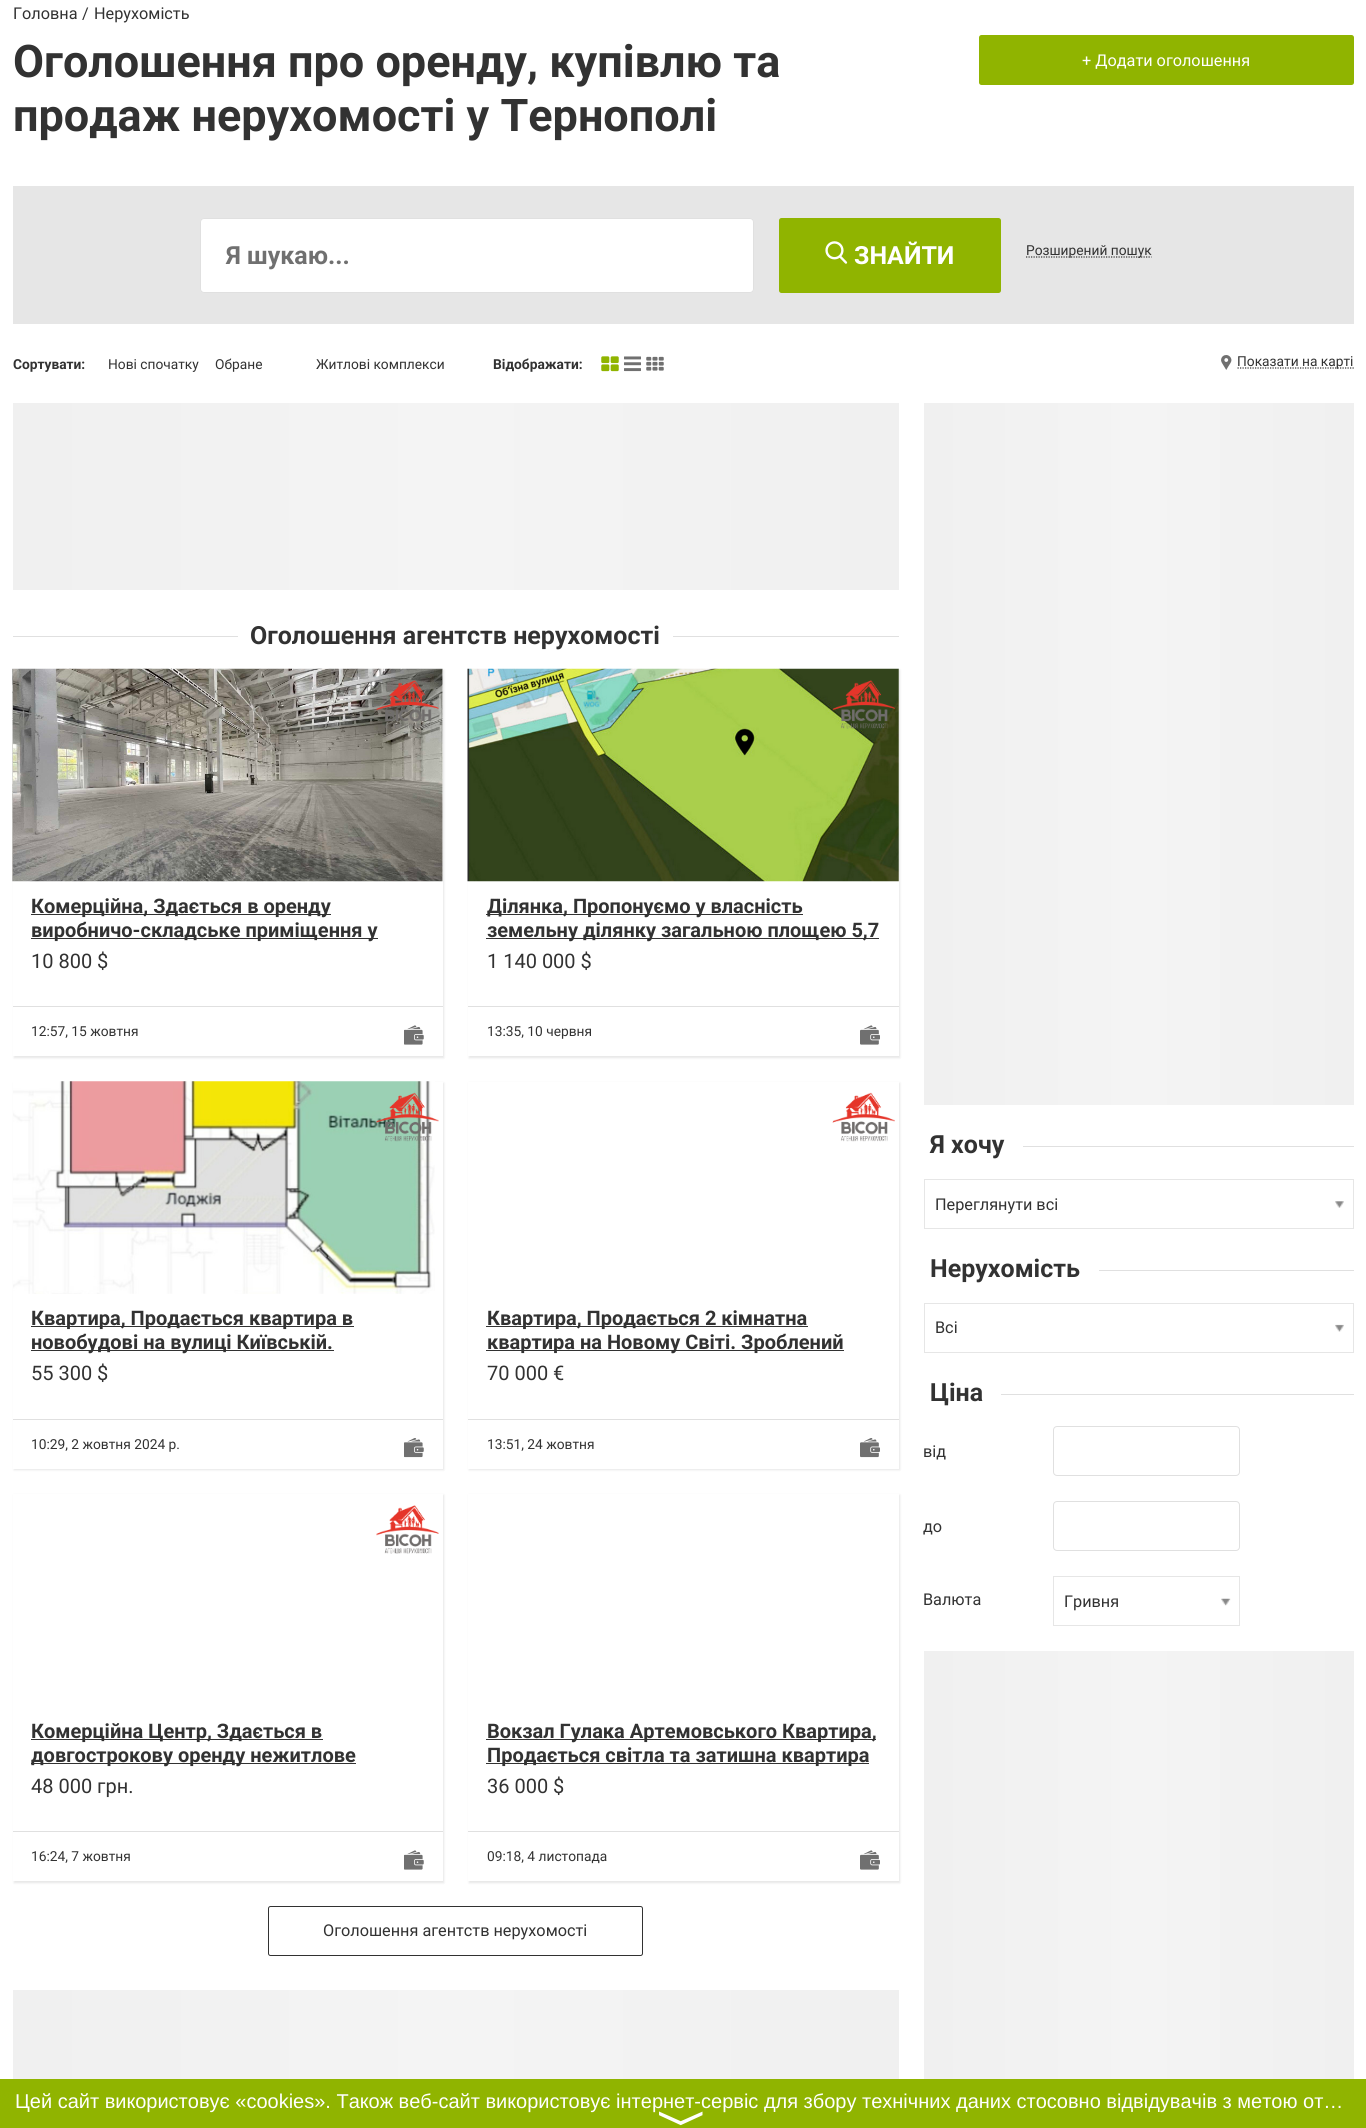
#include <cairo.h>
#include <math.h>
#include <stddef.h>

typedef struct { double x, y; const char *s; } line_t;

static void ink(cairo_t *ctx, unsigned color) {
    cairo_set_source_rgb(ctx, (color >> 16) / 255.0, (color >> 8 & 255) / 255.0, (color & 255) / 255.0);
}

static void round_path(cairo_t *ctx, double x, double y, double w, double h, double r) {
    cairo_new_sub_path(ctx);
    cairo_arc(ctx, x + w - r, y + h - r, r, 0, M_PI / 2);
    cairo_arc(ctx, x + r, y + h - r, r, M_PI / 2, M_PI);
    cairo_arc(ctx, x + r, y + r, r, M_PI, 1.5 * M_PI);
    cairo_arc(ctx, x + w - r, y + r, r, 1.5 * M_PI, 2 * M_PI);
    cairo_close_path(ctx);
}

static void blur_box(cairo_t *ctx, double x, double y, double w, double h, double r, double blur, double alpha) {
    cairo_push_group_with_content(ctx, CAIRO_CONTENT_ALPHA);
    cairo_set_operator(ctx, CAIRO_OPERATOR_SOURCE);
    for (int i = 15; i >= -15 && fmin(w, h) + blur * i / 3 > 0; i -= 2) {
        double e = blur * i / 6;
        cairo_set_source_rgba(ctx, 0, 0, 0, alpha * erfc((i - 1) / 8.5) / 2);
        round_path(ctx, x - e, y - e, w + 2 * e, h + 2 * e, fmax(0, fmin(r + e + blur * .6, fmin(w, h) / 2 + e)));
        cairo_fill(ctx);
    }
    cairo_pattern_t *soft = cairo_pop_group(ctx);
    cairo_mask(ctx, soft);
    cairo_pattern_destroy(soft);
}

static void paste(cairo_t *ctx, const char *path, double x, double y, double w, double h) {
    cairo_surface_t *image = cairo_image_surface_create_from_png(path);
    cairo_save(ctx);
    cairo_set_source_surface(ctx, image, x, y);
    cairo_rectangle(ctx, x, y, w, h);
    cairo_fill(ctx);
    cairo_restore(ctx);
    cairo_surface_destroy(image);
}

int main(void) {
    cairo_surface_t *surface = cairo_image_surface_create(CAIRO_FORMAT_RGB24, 1366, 2128);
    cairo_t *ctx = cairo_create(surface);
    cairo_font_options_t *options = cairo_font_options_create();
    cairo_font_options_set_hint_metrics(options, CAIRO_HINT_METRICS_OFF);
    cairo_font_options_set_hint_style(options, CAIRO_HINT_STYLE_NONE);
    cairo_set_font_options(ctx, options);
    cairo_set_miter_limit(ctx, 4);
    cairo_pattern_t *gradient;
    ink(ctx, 0xFFFFFF);
    cairo_paint(ctx);
    cairo_select_font_face(ctx, "Roboto", CAIRO_FONT_SLANT_NORMAL, CAIRO_FONT_WEIGHT_NORMAL);
    cairo_set_font_size(ctx, 16.25);
    ink(ctx, 0x323232);
    {
        static const line_t items[] = {
            {13, 19, "Головна"},
            {82, 19, "/"},
            {94, 19, "Нерухомість"},
        };
        for (size_t i = 0; i < sizeof items / sizeof *items; i++) {
            cairo_move_to(ctx, items[i].x, items[i].y);
            cairo_show_text(ctx, items[i].s);
        }
    }
    cairo_select_font_face(ctx, "Roboto", CAIRO_FONT_SLANT_NORMAL, CAIRO_FONT_WEIGHT_BOLD);
    cairo_set_font_size(ctx, 45);
    cairo_move_to(ctx, 13, 77);
    cairo_show_text(ctx, "Оголошення про оренду, купівлю та");
    cairo_move_to(ctx, 13, 131);
    cairo_show_text(ctx, "продаж нерухомості у Тернополі");
    ink(ctx, 0x90B400);
    round_path(ctx, 979, 35, 375, 50, 2.5);
    cairo_fill(ctx);
    cairo_select_font_face(ctx, "Roboto", CAIRO_FONT_SLANT_NORMAL, CAIRO_FONT_WEIGHT_NORMAL);
    cairo_set_font_size(ctx, 16.25);
    ink(ctx, 0xFFFFFF);
    cairo_move_to(ctx, 1082, 66);
    cairo_show_text(ctx, "+ Додати оголошення");
    ink(ctx, 0xE6E6E6);
    cairo_rectangle(ctx, 13, 186, 1341, 138);
    cairo_fill(ctx);
    ink(ctx, 0xFFFFFF);
    round_path(ctx, 200, 218, 554, 75, 4);
    cairo_fill(ctx);
    round_path(ctx, 200.5, 218.5, 553, 74, 3.5);
    cairo_set_source_rgba(ctx, 0.196, 0.196, 0.196, 0.15);
    cairo_set_line_width(ctx, 1);
    cairo_stroke(ctx);
    cairo_select_font_face(ctx, "Roboto", CAIRO_FONT_SLANT_NORMAL, CAIRO_FONT_WEIGHT_BOLD);
    cairo_set_font_size(ctx, 25);
    ink(ctx, 0x707070);
    cairo_move_to(ctx, 226, 264);
    cairo_show_text(ctx, "Я шукаю...");
    ink(ctx, 0x90B400);
    round_path(ctx, 779, 218, 222, 75, 2.5);
    cairo_fill(ctx);
    paste(ctx, "media/1.png", 825, 241, 23, 23);
    ink(ctx, 0xFFFFFF);
    cairo_move_to(ctx, 854, 264);
    cairo_show_text(ctx, "ЗНАЙТИ");
    cairo_new_path(ctx);
    cairo_move_to(ctx, 1026, 257);
    cairo_line_to(ctx, 1151.5, 257);
    ink(ctx, 0x323232);
    cairo_set_line_width(ctx, 1.2);
    cairo_set_dash(ctx, (double[]){1.25, 1.25}, 2, 0);
    cairo_stroke(ctx);
    cairo_select_font_face(ctx, "Roboto", CAIRO_FONT_SLANT_NORMAL, CAIRO_FONT_WEIGHT_NORMAL);
    cairo_set_font_size(ctx, 13.75);
    cairo_move_to(ctx, 1026, 255);
    cairo_show_text(ctx, "Розширений пошук");
    cairo_select_font_face(ctx, "Roboto", CAIRO_FONT_SLANT_NORMAL, CAIRO_FONT_WEIGHT_BOLD);
    cairo_move_to(ctx, 13, 369);
    cairo_show_text(ctx, "Сортувати:");
    cairo_select_font_face(ctx, "Roboto", CAIRO_FONT_SLANT_NORMAL, CAIRO_FONT_WEIGHT_NORMAL);
    {
        static const line_t items[] = {
            {108, 369, "Нові спочатку"},
            {215, 369, "Обране"},
            {316, 369, "Житлові комплекси"},
        };
        for (size_t i = 0; i < sizeof items / sizeof *items; i++) {
            cairo_move_to(ctx, items[i].x, items[i].y);
            cairo_show_text(ctx, items[i].s);
        }
    }
    cairo_select_font_face(ctx, "Roboto", CAIRO_FONT_SLANT_NORMAL, CAIRO_FONT_WEIGHT_BOLD);
    cairo_move_to(ctx, 493, 369);
    cairo_show_text(ctx, "Відображати:");
    paste(ctx, "media/2.png", 601, 356, 18, 16);
    paste(ctx, "media/3.png", 624, 356, 17, 16);
    paste(ctx, "media/4.png", 646, 356, 18, 15);
    paste(ctx, "media/5.png", 1221, 355, 11, 15);
    cairo_new_path(ctx);
    cairo_move_to(ctx, 1237.5, 368);
    cairo_line_to(ctx, 1354, 368);
    cairo_stroke(ctx);
    cairo_select_font_face(ctx, "Roboto", CAIRO_FONT_SLANT_NORMAL, CAIRO_FONT_WEIGHT_NORMAL);
    cairo_move_to(ctx, 1237, 366);
    cairo_show_text(ctx, "Показати на карті");
    gradient = cairo_pattern_create_linear(13, 496, 899, 496);
    cairo_pattern_add_color_stop_rgba(gradient, 0, 0.941, 0.941, 0.941, 1);
    cairo_pattern_add_color_stop_rgba(gradient, 0.5, 0.957, 0.957, 0.957, 1);
    cairo_pattern_add_color_stop_rgba(gradient, 1, 0.941, 0.941, 0.941, 1);
    cairo_set_source(ctx, gradient);
    cairo_pattern_destroy(gradient);
    cairo_rectangle(ctx, 13, 403, 886, 187);
    cairo_fill(ctx);
    ink(ctx, 0xE0E0E0);
    cairo_rectangle(ctx, 13, 636, 225, 1);
    cairo_fill(ctx);
    cairo_select_font_face(ctx, "Roboto", CAIRO_FONT_SLANT_NORMAL, CAIRO_FONT_WEIGHT_BOLD);
    cairo_set_font_size(ctx, 25);
    ink(ctx, 0x323232);
    cairo_move_to(ctx, 250, 644);
    cairo_show_text(ctx, "Оголошення агентств нерухомості");
    ink(ctx, 0xE0E0E0);
    cairo_rectangle(ctx, 673, 636, 226, 1);
    cairo_fill(ctx);
    ink(ctx, 0x5A5A5A);
    blur_box(ctx, 14, 670, 430, 388, 0, 1, 0.15);
    ink(ctx, 0xFFFFFF);
    cairo_rectangle(ctx, 13, 669, 430, 387);
    cairo_fill(ctx);
    paste(ctx, "media/6.png", 12, 668, 431, 214);
    paste(ctx, "media/7.png", 376, 680, 63, 49);
    ink(ctx, 0x323232);
    cairo_rectangle(ctx, 31, 914, 300, 1);
    cairo_fill(ctx);
    cairo_set_font_size(ctx, 20);
    cairo_move_to(ctx, 31, 913);
    cairo_show_text(ctx, "Комерційна, Здається в оренду");
    cairo_rectangle(ctx, 31, 938, 347, 1);
    cairo_fill(ctx);
    cairo_move_to(ctx, 31, 937);
    cairo_show_text(ctx, "виробничо-складське приміщення у");
    cairo_select_font_face(ctx, "Roboto", CAIRO_FONT_SLANT_NORMAL, CAIRO_FONT_WEIGHT_NORMAL);
    cairo_move_to(ctx, 31, 968);
    cairo_show_text(ctx, "10 800 $");
    ink(ctx, 0xE0E0E0);
    cairo_rectangle(ctx, 13, 1006, 430, 1);
    cairo_fill(ctx);
    cairo_set_font_size(ctx, 13.75);
    ink(ctx, 0x323232);
    cairo_move_to(ctx, 31, 1036);
    cairo_show_text(ctx, "12:57, 15 жовтня");
    paste(ctx, "media/8.png", 404, 1025, 20, 20);
    ink(ctx, 0x5A5A5A);
    blur_box(ctx, 469, 670, 431, 388, 0, 1, 0.15);
    ink(ctx, 0xFFFFFF);
    cairo_rectangle(ctx, 468, 669, 431, 387);
    cairo_fill(ctx);
    paste(ctx, "media/9.png", 467, 668, 432, 214);
    paste(ctx, "media/10.png", 832, 680, 64, 49);
    ink(ctx, 0x323232);
    cairo_rectangle(ctx, 486, 914, 317, 1);
    cairo_fill(ctx);
    cairo_select_font_face(ctx, "Roboto", CAIRO_FONT_SLANT_NORMAL, CAIRO_FONT_WEIGHT_BOLD);
    cairo_set_font_size(ctx, 20);
    cairo_move_to(ctx, 487, 913);
    cairo_show_text(ctx, "Ділянка, Пропонуємо у власність");
    cairo_rectangle(ctx, 486, 938, 393, 1);
    cairo_fill(ctx);
    cairo_move_to(ctx, 487, 937);
    cairo_show_text(ctx, "земельну ділянку загальною площею 5,7");
    cairo_select_font_face(ctx, "Roboto", CAIRO_FONT_SLANT_NORMAL, CAIRO_FONT_WEIGHT_NORMAL);
    cairo_move_to(ctx, 487, 968);
    cairo_show_text(ctx, "1 140 000 $");
    ink(ctx, 0xE0E0E0);
    cairo_rectangle(ctx, 468, 1006, 431, 1);
    cairo_fill(ctx);
    cairo_set_font_size(ctx, 13.75);
    ink(ctx, 0x323232);
    cairo_move_to(ctx, 487, 1036);
    cairo_show_text(ctx, "13:35, 10 червня");
    paste(ctx, "media/11.png", 860, 1025, 20, 20);
    ink(ctx, 0x5A5A5A);
    blur_box(ctx, 14, 1083, 430, 387, 0, 1, 0.15);
    ink(ctx, 0xFFFFFF);
    cairo_rectangle(ctx, 13, 1082, 430, 387);
    cairo_fill(ctx);
    paste(ctx, "media/12.png", 13, 1081, 422, 213);
    paste(ctx, "media/13.png", 376, 1092, 63, 50);
    ink(ctx, 0x323232);
    cairo_rectangle(ctx, 31, 1326, 323, 1);
    cairo_fill(ctx);
    cairo_select_font_face(ctx, "Roboto", CAIRO_FONT_SLANT_NORMAL, CAIRO_FONT_WEIGHT_BOLD);
    cairo_set_font_size(ctx, 20);
    cairo_move_to(ctx, 31, 1325);
    cairo_show_text(ctx, "Квартира, Продається квартира в");
    cairo_rectangle(ctx, 31, 1350, 303, 1);
    cairo_fill(ctx);
    cairo_move_to(ctx, 31, 1349);
    cairo_show_text(ctx, "новобудові на вулиці Київській.");
    cairo_select_font_face(ctx, "Roboto", CAIRO_FONT_SLANT_NORMAL, CAIRO_FONT_WEIGHT_NORMAL);
    cairo_move_to(ctx, 31, 1380);
    cairo_show_text(ctx, "55 300 $");
    ink(ctx, 0xE0E0E0);
    cairo_rectangle(ctx, 13, 1419, 430, 1);
    cairo_fill(ctx);
    cairo_set_font_size(ctx, 13.75);
    ink(ctx, 0x323232);
    cairo_move_to(ctx, 31, 1449);
    cairo_show_text(ctx, "10:29, 2 жовтня 2024 р.");
    paste(ctx, "media/14.png", 404, 1438, 20, 20);
    ink(ctx, 0x5A5A5A);
    blur_box(ctx, 469, 1083, 431, 387, 0, 1, 0.15);
    ink(ctx, 0xFFFFFF);
    cairo_rectangle(ctx, 468, 1082, 431, 387);
    cairo_fill(ctx);
    paste(ctx, "media/15.png", 832, 1092, 63, 50);
    ink(ctx, 0x323232);
    cairo_rectangle(ctx, 486, 1326, 322, 1);
    cairo_fill(ctx);
    cairo_select_font_face(ctx, "Roboto", CAIRO_FONT_SLANT_NORMAL, CAIRO_FONT_WEIGHT_BOLD);
    cairo_set_font_size(ctx, 20);
    cairo_move_to(ctx, 487, 1325);
    cairo_show_text(ctx, "Квартира, Продається 2 кімнатна");
    cairo_rectangle(ctx, 486, 1350, 358, 1);
    cairo_fill(ctx);
    cairo_move_to(ctx, 487, 1349);
    cairo_show_text(ctx, "квартира на Новому Світі. Зроблений");
    cairo_select_font_face(ctx, "Roboto", CAIRO_FONT_SLANT_NORMAL, CAIRO_FONT_WEIGHT_NORMAL);
    cairo_move_to(ctx, 487, 1380);
    cairo_show_text(ctx, "70 000 €");
    ink(ctx, 0xE0E0E0);
    cairo_rectangle(ctx, 468, 1419, 431, 1);
    cairo_fill(ctx);
    cairo_set_font_size(ctx, 13.75);
    ink(ctx, 0x323232);
    cairo_move_to(ctx, 487, 1449);
    cairo_show_text(ctx, "13:51, 24 жовтня");
    paste(ctx, "media/16.png", 860, 1438, 20, 20);
    ink(ctx, 0x5A5A5A);
    blur_box(ctx, 14, 1495, 430, 388, 0, 1, 0.15);
    ink(ctx, 0xFFFFFF);
    cairo_rectangle(ctx, 13, 1494, 430, 387);
    cairo_fill(ctx);
    paste(ctx, "media/17.png", 376, 1505, 63, 49);
    ink(ctx, 0x323232);
    cairo_rectangle(ctx, 31, 1739, 292, 1);
    cairo_fill(ctx);
    cairo_select_font_face(ctx, "Roboto", CAIRO_FONT_SLANT_NORMAL, CAIRO_FONT_WEIGHT_BOLD);
    cairo_set_font_size(ctx, 20);
    cairo_move_to(ctx, 31, 1738);
    cairo_show_text(ctx, "Комерційна Центр, Здається в");
    cairo_rectangle(ctx, 31, 1763, 325, 1);
    cairo_fill(ctx);
    cairo_move_to(ctx, 31, 1762);
    cairo_show_text(ctx, "довгострокову оренду нежитлове");
    cairo_select_font_face(ctx, "Roboto", CAIRO_FONT_SLANT_NORMAL, CAIRO_FONT_WEIGHT_NORMAL);
    cairo_move_to(ctx, 31, 1793);
    cairo_show_text(ctx, "48 000 грн.");
    ink(ctx, 0xE0E0E0);
    cairo_rectangle(ctx, 13, 1831, 430, 1);
    cairo_fill(ctx);
    cairo_set_font_size(ctx, 13.75);
    ink(ctx, 0x323232);
    cairo_move_to(ctx, 31, 1861);
    cairo_show_text(ctx, "16:24, 7 жовтня");
    paste(ctx, "media/8.png", 404, 1850, 20, 20);
    ink(ctx, 0x5A5A5A);
    blur_box(ctx, 469, 1495, 431, 388, 0, 1, 0.15);
    ink(ctx, 0xFFFFFF);
    cairo_rectangle(ctx, 468, 1494, 431, 387);
    cairo_fill(ctx);
    ink(ctx, 0x323232);
    cairo_rectangle(ctx, 486, 1739, 390, 1);
    cairo_fill(ctx);
    cairo_select_font_face(ctx, "Roboto", CAIRO_FONT_SLANT_NORMAL, CAIRO_FONT_WEIGHT_BOLD);
    cairo_set_font_size(ctx, 20);
    cairo_move_to(ctx, 487, 1738);
    cairo_show_text(ctx, "Вокзал Гулака Артемовського Квартира,");
    cairo_rectangle(ctx, 486, 1763, 383, 1);
    cairo_fill(ctx);
    cairo_move_to(ctx, 487, 1762);
    cairo_show_text(ctx, "Продається світла та затишна квартира");
    cairo_select_font_face(ctx, "Roboto", CAIRO_FONT_SLANT_NORMAL, CAIRO_FONT_WEIGHT_NORMAL);
    cairo_move_to(ctx, 487, 1793);
    cairo_show_text(ctx, "36 000 $");
    ink(ctx, 0xE0E0E0);
    cairo_rectangle(ctx, 468, 1831, 431, 1);
    cairo_fill(ctx);
    cairo_set_font_size(ctx, 13.75);
    ink(ctx, 0x323232);
    cairo_move_to(ctx, 487, 1861);
    cairo_show_text(ctx, "09:18, 4 листопада");
    paste(ctx, "media/11.png", 860, 1850, 20, 20);
    round_path(ctx, 268.5, 1906.5, 374, 49, 2);
    cairo_set_line_width(ctx, 1);
    cairo_set_dash(ctx, NULL, 0, 0);
    cairo_stroke(ctx);
    cairo_set_font_size(ctx, 16.25);
    cairo_move_to(ctx, 323, 1936);
    cairo_show_text(ctx, "Оголошення агентств нерухомості");
    gradient = cairo_pattern_create_linear(13, 2084, 899, 2084);
    cairo_pattern_add_color_stop_rgba(gradient, 0, 0.941, 0.941, 0.941, 1);
    cairo_pattern_add_color_stop_rgba(gradient, 0.5, 0.957, 0.957, 0.957, 1);
    cairo_pattern_add_color_stop_rgba(gradient, 1, 0.941, 0.941, 0.941, 1);
    cairo_set_source(ctx, gradient);
    cairo_pattern_destroy(gradient);
    cairo_rectangle(ctx, 13, 1990, 886, 89);
    cairo_fill(ctx);
    gradient = cairo_pattern_create_linear(924, 754, 1354, 754);
    cairo_pattern_add_color_stop_rgba(gradient, 0, 0.941, 0.941, 0.941, 1);
    cairo_pattern_add_color_stop_rgba(gradient, 0.5, 0.957, 0.957, 0.957, 1);
    cairo_pattern_add_color_stop_rgba(gradient, 1, 0.941, 0.941, 0.941, 1);
    cairo_set_source(ctx, gradient);
    cairo_pattern_destroy(gradient);
    cairo_rectangle(ctx, 924, 403, 430, 702);
    cairo_fill(ctx);
    cairo_select_font_face(ctx, "Roboto", CAIRO_FONT_SLANT_NORMAL, CAIRO_FONT_WEIGHT_BOLD);
    cairo_set_font_size(ctx, 25);
    ink(ctx, 0x323232);
    cairo_move_to(ctx, 930, 1153);
    cairo_show_text(ctx, "Я хочу");
    ink(ctx, 0xE0E0E0);
    cairo_rectangle(ctx, 1023, 1146, 331, 1);
    cairo_fill(ctx);
    cairo_rectangle(ctx, 924.5, 1179.5, 429, 49);
    ink(ctx, 0xE6E6E6);
    cairo_stroke(ctx);
    cairo_select_font_face(ctx, "Roboto", CAIRO_FONT_SLANT_NORMAL, CAIRO_FONT_WEIGHT_NORMAL);
    cairo_set_font_size(ctx, 16.25);
    ink(ctx, 0x323232);
    cairo_move_to(ctx, 935, 1210);
    cairo_show_text(ctx, "Переглянути всі");
    paste(ctx, "media/18.png", 1335, 1201, 9, 7);
    cairo_select_font_face(ctx, "Roboto", CAIRO_FONT_SLANT_NORMAL, CAIRO_FONT_WEIGHT_BOLD);
    cairo_set_font_size(ctx, 25);
    cairo_move_to(ctx, 930, 1277);
    cairo_show_text(ctx, "Нерухомість");
    ink(ctx, 0xE0E0E0);
    cairo_rectangle(ctx, 1099, 1270, 255, 1);
    cairo_fill(ctx);
    cairo_rectangle(ctx, 924.5, 1303.5, 429, 49);
    ink(ctx, 0xE6E6E6);
    cairo_stroke(ctx);
    cairo_select_font_face(ctx, "Roboto", CAIRO_FONT_SLANT_NORMAL, CAIRO_FONT_WEIGHT_NORMAL);
    cairo_set_font_size(ctx, 16.25);
    ink(ctx, 0x323232);
    cairo_move_to(ctx, 935, 1333);
    cairo_show_text(ctx, "Всі");
    paste(ctx, "media/19.png", 1335, 1324, 9, 8);
    cairo_select_font_face(ctx, "Roboto", CAIRO_FONT_SLANT_NORMAL, CAIRO_FONT_WEIGHT_BOLD);
    cairo_set_font_size(ctx, 25);
    cairo_move_to(ctx, 930, 1401);
    cairo_show_text(ctx, "Ціна");
    ink(ctx, 0xE0E0E0);
    cairo_rectangle(ctx, 1001, 1394, 353, 1);
    cairo_fill(ctx);
    cairo_select_font_face(ctx, "Roboto", CAIRO_FONT_SLANT_NORMAL, CAIRO_FONT_WEIGHT_NORMAL);
    cairo_set_font_size(ctx, 16.25);
    ink(ctx, 0x323232);
    cairo_move_to(ctx, 923, 1457);
    cairo_show_text(ctx, "від");
    round_path(ctx, 1053.5, 1426.5, 186, 49, 3.5);
    ink(ctx, 0xE0E0E0);
    cairo_stroke(ctx);
    ink(ctx, 0x323232);
    cairo_move_to(ctx, 923, 1532);
    cairo_show_text(ctx, "до");
    round_path(ctx, 1053.5, 1501.5, 186, 49, 3.5);
    ink(ctx, 0xE0E0E0);
    cairo_stroke(ctx);
    ink(ctx, 0x323232);
    cairo_move_to(ctx, 923, 1605);
    cairo_show_text(ctx, "Валюта");
    cairo_rectangle(ctx, 1053.5, 1576.5, 186, 49);
    ink(ctx, 0xE6E6E6);
    cairo_stroke(ctx);
    ink(ctx, 0x323232);
    cairo_move_to(ctx, 1064, 1607);
    cairo_show_text(ctx, "Гривня");
    paste(ctx, "media/20.png", 1221, 1598, 10, 8);
    gradient = cairo_pattern_create_linear(924, 2002, 1354, 2002);
    cairo_pattern_add_color_stop_rgba(gradient, 0, 0.941, 0.941, 0.941, 1);
    cairo_pattern_add_color_stop_rgba(gradient, 0.5, 0.957, 0.957, 0.957, 1);
    cairo_pattern_add_color_stop_rgba(gradient, 1, 0.941, 0.941, 0.941, 1);
    cairo_set_source(ctx, gradient);
    cairo_pattern_destroy(gradient);
    cairo_rectangle(ctx, 924, 1651, 430, 428);
    cairo_fill(ctx);
    ink(ctx, 0x90B400);
    cairo_rectangle(ctx, 0, 2079, 1366, 49);
    cairo_fill(ctx);
    cairo_select_font_face(ctx, "Liberation Sans", CAIRO_FONT_SLANT_NORMAL, CAIRO_FONT_WEIGHT_NORMAL);
    cairo_set_font_size(ctx, 20);
    ink(ctx, 0xFFFFFF);
    cairo_move_to(ctx, 15, 2108);
    cairo_show_text(ctx, "Цей сайт використовує «cookies». Також веб-сайт використовує інтернет-сервіс для збору технічних даних стосовно відвідувачів з метою от…");
    cairo_select_font_face(ctx, "FreeSans", CAIRO_FONT_SLANT_NORMAL, CAIRO_FONT_WEIGHT_NORMAL);
    cairo_set_font_size(ctx, 50);
    cairo_save(ctx);
    cairo_translate(ctx, 666, 2110);
    cairo_rotate(ctx, 90 * M_PI / 180);
    cairo_move_to(ctx, 0, 0);
    cairo_show_text(ctx, "〉");
    cairo_restore(ctx);
    cairo_surface_write_to_png(surface, "image.png");
    cairo_font_options_destroy(options);
    cairo_destroy(ctx);
    cairo_surface_destroy(surface);
    return 0;
}
